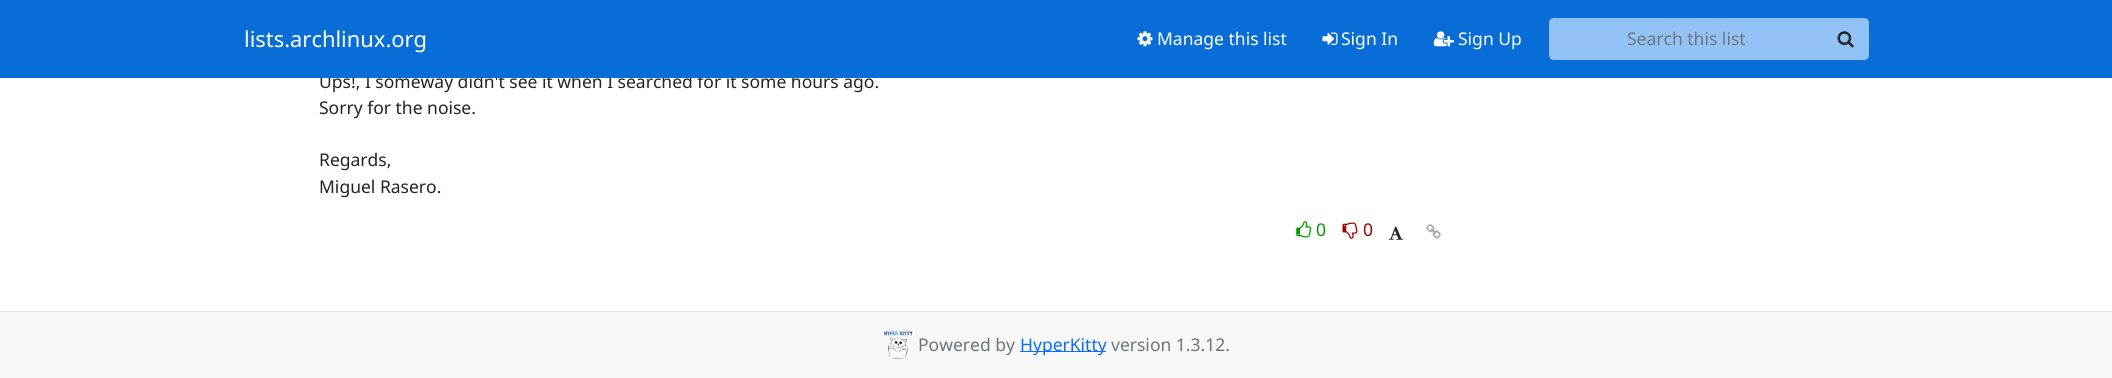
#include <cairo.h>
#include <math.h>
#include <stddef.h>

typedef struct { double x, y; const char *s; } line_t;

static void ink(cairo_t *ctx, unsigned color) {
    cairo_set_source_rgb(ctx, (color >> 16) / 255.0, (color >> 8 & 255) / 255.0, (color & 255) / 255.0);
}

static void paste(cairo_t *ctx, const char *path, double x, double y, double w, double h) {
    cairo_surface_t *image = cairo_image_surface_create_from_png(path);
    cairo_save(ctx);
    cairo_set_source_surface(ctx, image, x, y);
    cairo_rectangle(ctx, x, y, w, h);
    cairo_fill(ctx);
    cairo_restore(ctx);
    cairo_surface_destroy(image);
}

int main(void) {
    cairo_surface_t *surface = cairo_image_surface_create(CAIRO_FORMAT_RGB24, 2112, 378);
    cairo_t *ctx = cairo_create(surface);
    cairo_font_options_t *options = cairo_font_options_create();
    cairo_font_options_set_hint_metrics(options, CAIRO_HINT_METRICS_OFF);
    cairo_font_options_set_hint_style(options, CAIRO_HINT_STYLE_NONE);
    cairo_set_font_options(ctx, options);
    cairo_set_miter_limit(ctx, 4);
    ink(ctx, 0xFFFFFF);
    cairo_paint(ctx);
    cairo_select_font_face(ctx, "Noto Sans", CAIRO_FONT_SLANT_NORMAL, CAIRO_FONT_WEIGHT_NORMAL);
    cairo_set_font_size(ctx, 17.5);
    ink(ctx, 0x212529);
    cairo_move_to(ctx, 319, 88);
    cairo_show_text(ctx, "Ups!, I someway didn't see it when I searched for it some hours ago.");
    ink(ctx, 0x086DD7);
    cairo_rectangle(ctx, 0, 0, 2112, 78);
    cairo_fill(ctx);
    cairo_set_font_size(ctx, 21.9);
    ink(ctx, 0xFFFFFF);
    cairo_move_to(ctx, 244, 47);
    cairo_show_text(ctx, "lists.archlinux.org");
    paste(ctx, "media/1.png", 1137, 31, 16, 16);
    cairo_set_font_size(ctx, 17.5);
    cairo_move_to(ctx, 1157, 45);
    cairo_show_text(ctx, "Manage this list");
    paste(ctx, "media/2.png", 1322, 32, 16, 13);
    cairo_move_to(ctx, 1341, 45);
    cairo_show_text(ctx, "Sign In");
    paste(ctx, "media/3.png", 1433, 31, 21, 16);
    cairo_move_to(ctx, 1458, 45);
    cairo_show_text(ctx, "Sign Up");
    ink(ctx, 0x92C2F5);
    cairo_new_path(ctx);
    cairo_move_to(ctx, 1554, 18);
    cairo_line_to(ctx, 1825, 18);
    cairo_line_to(ctx, 1825, 60);
    cairo_line_to(ctx, 1554, 60);
    cairo_curve_to(ctx, 1551, 60, 1549, 58, 1549, 55);
    cairo_line_to(ctx, 1549, 23);
    cairo_curve_to(ctx, 1549, 20, 1551, 18, 1554, 18);
    cairo_close_path(ctx);
    cairo_fill(ctx);
    ink(ctx, 0x6C757D);
    cairo_move_to(ctx, 1627, 45);
    cairo_show_text(ctx, "Search this list");
    ink(ctx, 0x92C2F5);
    cairo_new_path(ctx);
    cairo_move_to(ctx, 1824, 18);
    cairo_line_to(ctx, 1864, 18);
    cairo_curve_to(ctx, 1867, 18, 1869, 20, 1869, 23);
    cairo_line_to(ctx, 1869, 55);
    cairo_curve_to(ctx, 1869, 58, 1867, 60, 1864, 60);
    cairo_line_to(ctx, 1824, 60);
    cairo_close_path(ctx);
    cairo_fill(ctx);
    paste(ctx, "media/4.png", 1837, 31, 17, 17);
    ink(ctx, 0x212529);
    {
        static const line_t items[] = {
            {319, 114, "Sorry for the noise."},
            {319, 166, "Regards,"},
            {319, 193, "Miguel Rasero."},
        };
        for (size_t i = 0; i < sizeof items / sizeof *items; i++) {
            cairo_move_to(ctx, items[i].x, items[i].y);
            cairo_show_text(ctx, items[i].s);
        }
    }
    paste(ctx, "media/5.png", 1296, 221, 16, 17);
    ink(ctx, 0x009900);
    cairo_move_to(ctx, 1316, 236);
    cairo_show_text(ctx, "0");
    paste(ctx, "media/6.png", 1342, 222, 16, 17);
    ink(ctx, 0x990000);
    cairo_move_to(ctx, 1363, 236);
    cairo_show_text(ctx, "0");
    paste(ctx, "media/7.png", 1388, 226, 15, 14);
    paste(ctx, "media/8.png", 1426, 224, 15, 15);
    ink(ctx, 0xF8F8F8);
    cairo_rectangle(ctx, 0, 312, 2112, 66);
    cairo_fill(ctx);
    ink(ctx, 0xE7E7E7);
    cairo_rectangle(ctx, 0, 311, 2112, 1);
    cairo_fill(ctx);
    paste(ctx, "media/9.png", 884, 331, 29, 28);
    ink(ctx, 0x6C757D);
    cairo_move_to(ctx, 918, 351);
    cairo_show_text(ctx, "Powered by");
    ink(ctx, 0x0D6EFD);
    cairo_rectangle(ctx, 1020, 351, 86, 1);
    cairo_fill(ctx);
    cairo_move_to(ctx, 1020, 351);
    cairo_show_text(ctx, "HyperKitty");
    ink(ctx, 0x6C757D);
    cairo_move_to(ctx, 1111, 351);
    cairo_show_text(ctx, "version 1.3.12.");
    cairo_surface_write_to_png(surface, "image.png");
    cairo_font_options_destroy(options);
    cairo_destroy(ctx);
    cairo_surface_destroy(surface);
    return 0;
}
